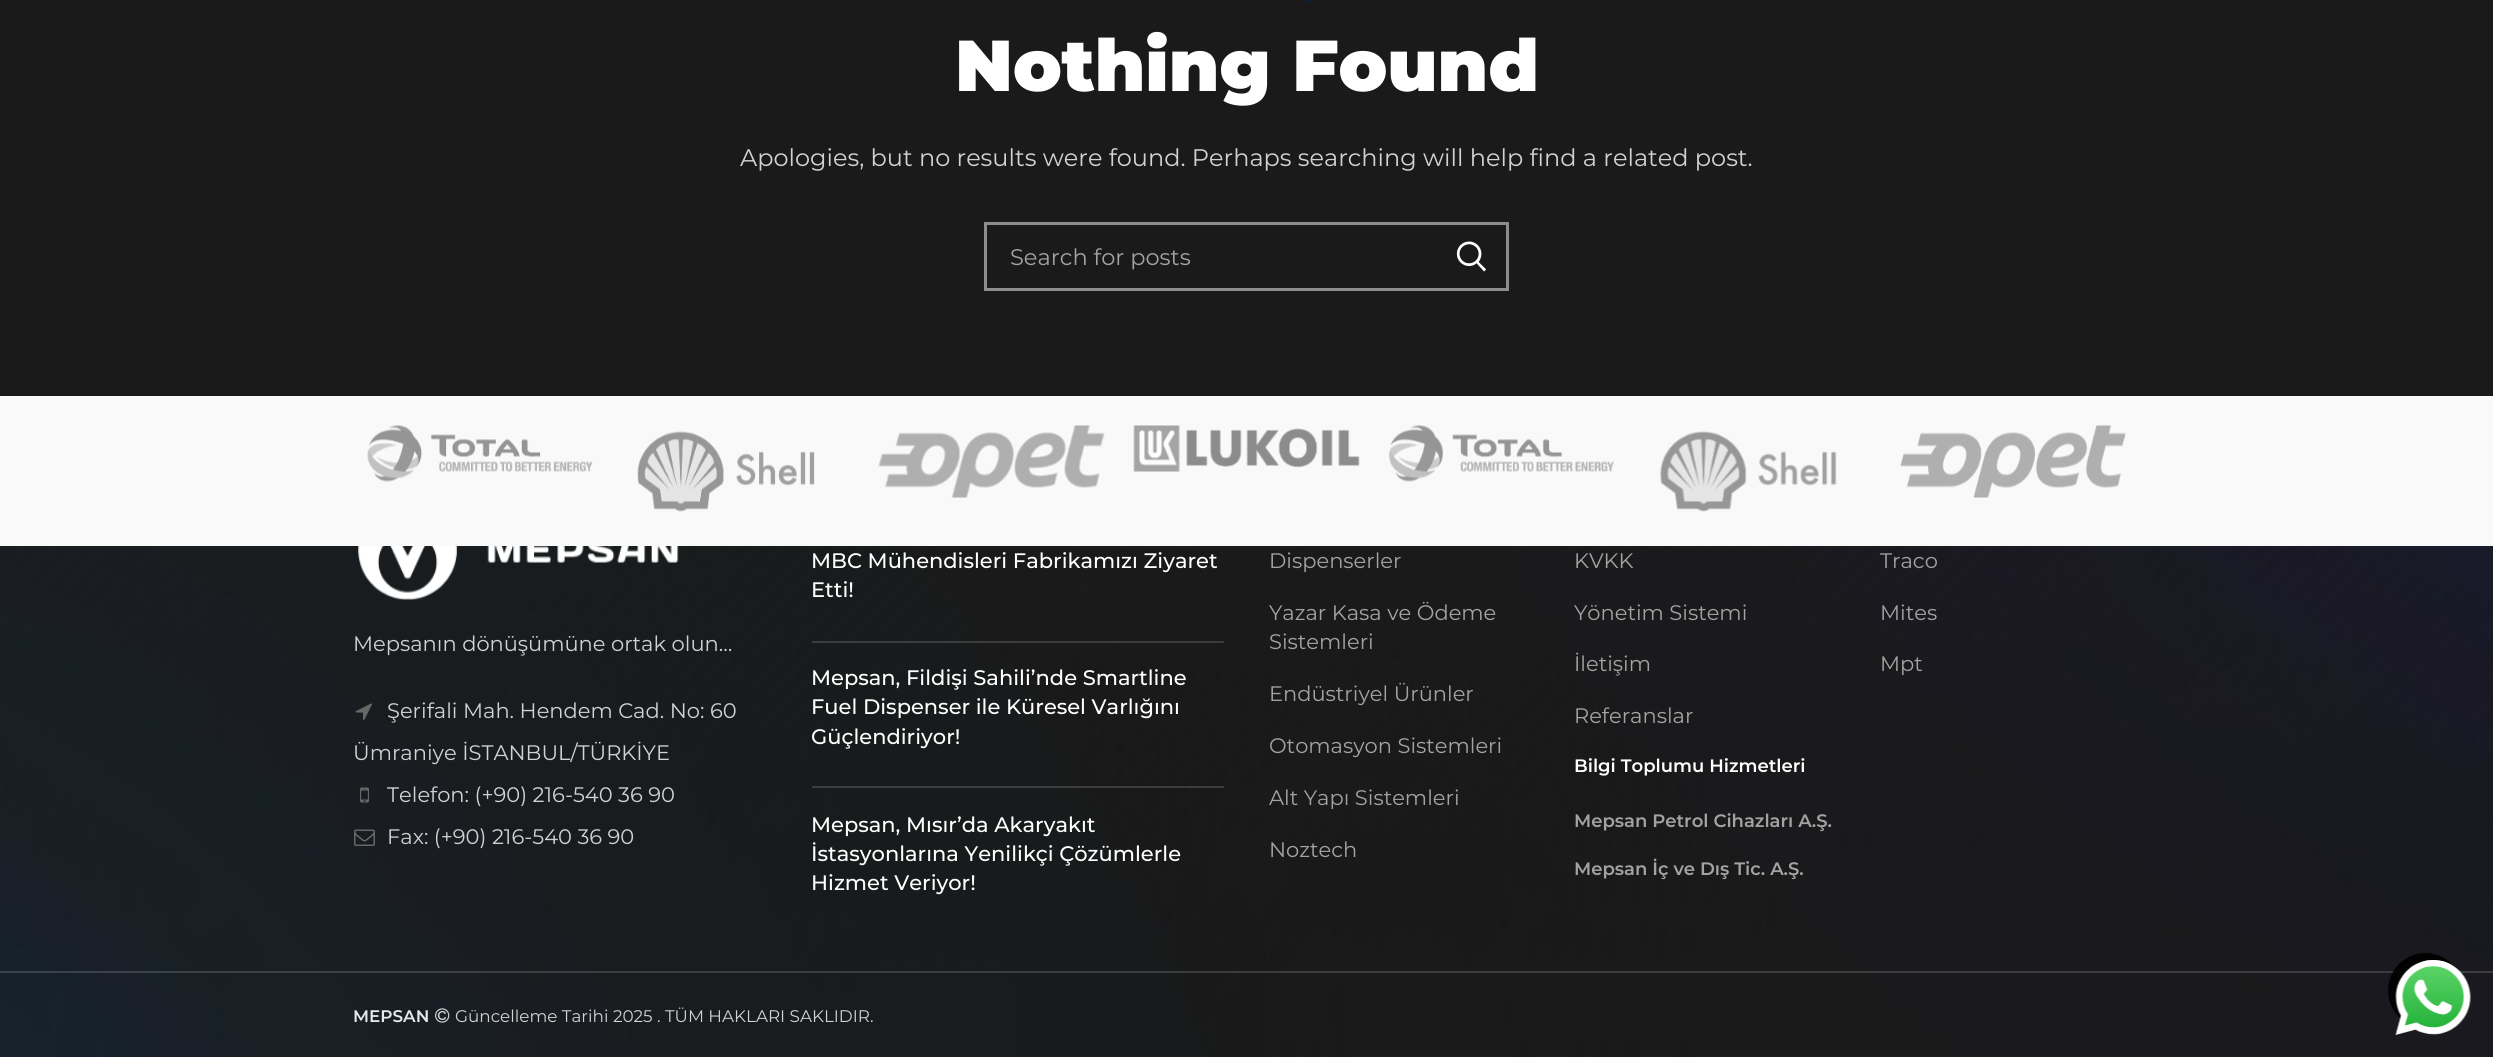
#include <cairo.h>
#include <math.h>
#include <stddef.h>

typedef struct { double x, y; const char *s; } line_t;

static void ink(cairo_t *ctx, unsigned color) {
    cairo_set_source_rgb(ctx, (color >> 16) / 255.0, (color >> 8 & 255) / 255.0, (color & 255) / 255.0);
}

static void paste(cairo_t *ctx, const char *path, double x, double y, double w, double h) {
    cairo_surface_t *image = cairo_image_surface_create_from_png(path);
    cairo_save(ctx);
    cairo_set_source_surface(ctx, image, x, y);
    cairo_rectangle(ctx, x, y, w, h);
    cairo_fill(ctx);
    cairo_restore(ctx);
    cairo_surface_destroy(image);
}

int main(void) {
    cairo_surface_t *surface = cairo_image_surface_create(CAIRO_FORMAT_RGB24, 2493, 1057);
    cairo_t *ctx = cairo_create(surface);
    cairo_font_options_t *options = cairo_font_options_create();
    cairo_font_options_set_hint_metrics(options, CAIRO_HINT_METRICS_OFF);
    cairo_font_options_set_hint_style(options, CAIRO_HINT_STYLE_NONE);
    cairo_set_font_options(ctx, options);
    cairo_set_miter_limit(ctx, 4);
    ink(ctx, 0x1A1A1A);
    cairo_paint(ctx);
    ink(ctx, 0x002C5E);
    cairo_new_path(ctx);
    cairo_move_to(ctx, 1282, -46);
    cairo_curve_to(ctx, 1291, -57, 1296, -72, 1296, -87);
    cairo_curve_to(ctx, 1296, -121, 1268, -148, 1234, -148);
    cairo_curve_to(ctx, 1201, -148, 1173, -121, 1173, -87);
    cairo_curve_to(ctx, 1173, -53, 1201, -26, 1234, -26);
    cairo_curve_to(ctx, 1249, -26, 1262, -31, 1272, -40);
    cairo_line_to(ctx, 1309, 2);
    cairo_line_to(ctx, 1320, -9);
    cairo_close_path(ctx);
    cairo_move_to(ctx, 1234, -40);
    cairo_curve_to(ctx, 1208, -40, 1187, -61, 1187, -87);
    cairo_curve_to(ctx, 1187, -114, 1208, -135, 1234, -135);
    cairo_curve_to(ctx, 1261, -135, 1282, -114, 1282, -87);
    cairo_curve_to(ctx, 1282, -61, 1261, -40, 1234, -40);
    cairo_close_path(ctx);
    cairo_fill(ctx);
    cairo_select_font_face(ctx, "Montserrat Black", CAIRO_FONT_SLANT_NORMAL, CAIRO_FONT_WEIGHT_NORMAL);
    cairo_set_font_size(ctx, 72);
    ink(ctx, 0xFFFFFF);
    cairo_move_to(ctx, 955, 91);
    cairo_show_text(ctx, "Nothing Found");
    cairo_select_font_face(ctx, "Montserrat", CAIRO_FONT_SLANT_NORMAL, CAIRO_FONT_WEIGHT_NORMAL);
    cairo_set_font_size(ctx, 24);
    ink(ctx, 0xD1D2D2);
    cairo_move_to(ctx, 740, 166);
    cairo_show_text(ctx, "Apologies, but no results were found. Perhaps searching will help find a related post.");
    cairo_rectangle(ctx, 985.5, 223.5, 522, 66);
    ink(ctx, 0x8D8D8D);
    cairo_set_line_width(ctx, 3);
    cairo_stroke(ctx);
    cairo_set_font_size(ctx, 22.5);
    ink(ctx, 0xA3A3A3);
    cairo_move_to(ctx, 1010, 265);
    cairo_show_text(ctx, "Search for posts");
    paste(ctx, "media/1.png", 1456, 241, 31, 31);
    ink(ctx, 0xF9F9F9);
    cairo_rectangle(ctx, 0, 396, 2493, 150);
    cairo_fill(ctx);
    paste(ctx, "media/2.png", 367, 425, 226, 57);
    paste(ctx, "media/3.png", 637, 431, 178, 81);
    paste(ctx, "media/4.png", 878, 425, 227, 73);
    paste(ctx, "media/5.png", 1133, 425, 227, 47);
    paste(ctx, "media/6.png", 1389, 425, 225, 57);
    paste(ctx, "media/7.png", 1660, 431, 177, 81);
    paste(ctx, "media/8.png", 1900, 425, 226, 73);
    paste(ctx, "media/9.png", 0, 546, 2493, 511);
    cairo_set_source_rgba(ctx, 1, 1, 1, 0.15);
    cairo_rectangle(ctx, 812, 641, 412, 2);
    cairo_fill(ctx);
    cairo_select_font_face(ctx, "Montserrat Medium", CAIRO_FONT_SLANT_NORMAL, CAIRO_FONT_WEIGHT_NORMAL);
    cairo_set_font_size(ctx, 21);
    ink(ctx, 0xFFFFFF);
    cairo_move_to(ctx, 811, 568);
    cairo_show_text(ctx, "MBC Mühendisleri Fabrikamızı Ziyaret");
    cairo_move_to(ctx, 811, 597);
    cairo_show_text(ctx, "Etti!");
    cairo_set_source_rgba(ctx, 1, 1, 1, 0.15);
    cairo_rectangle(ctx, 812, 786, 412, 2);
    cairo_fill(ctx);
    ink(ctx, 0xFFFFFF);
    {
        static const line_t items[] = {
            {811, 685, "Mepsan, Fildişi Sahili’nde Smartline"},
            {811, 714, "Fuel Dispenser ile Küresel Varlığını"},
            {811, 744, "Güçlendiriyor!"},
            {811, 832, "Mepsan, Mısır’da Akaryakıt"},
            {811, 861, "İstasyonlarına Yenilikçi Çözümlerle"},
            {811, 890, "Hizmet Veriyor!"},
        };
        for (size_t i = 0; i < sizeof items / sizeof *items; i++) {
            cairo_move_to(ctx, items[i].x, items[i].y);
            cairo_show_text(ctx, items[i].s);
        }
    }
    cairo_select_font_face(ctx, "Montserrat", CAIRO_FONT_SLANT_NORMAL, CAIRO_FONT_WEIGHT_NORMAL);
    ink(ctx, 0xA3A3A3);
    {
        static const line_t items[] = {
            {1269, 568, "Dispenserler"},
            {1269, 620, "Yazar Kasa ve Ödeme"},
            {1269, 649, "Sistemleri"},
            {1269, 701, "Endüstriyel Ürünler"},
            {1269, 753, "Otomasyon Sistemleri"},
            {1269, 805, "Alt Yapı Sistemleri"},
            {1269, 857, "Noztech"},
            {1574, 568, "KVKK"},
            {1574, 620, "Yönetim Sistemi"},
            {1574, 671, "İletişim"},
            {1574, 723, "Referanslar"},
        };
        for (size_t i = 0; i < sizeof items / sizeof *items; i++) {
            cairo_move_to(ctx, items[i].x, items[i].y);
            cairo_show_text(ctx, items[i].s);
        }
    }
    cairo_select_font_face(ctx, "Montserrat SemiBold", CAIRO_FONT_SLANT_NORMAL, CAIRO_FONT_WEIGHT_NORMAL);
    cairo_set_font_size(ctx, 18);
    ink(ctx, 0xFFFFFF);
    cairo_move_to(ctx, 1574, 772);
    cairo_show_text(ctx, "Bilgi Toplumu Hizmetleri");
    ink(ctx, 0xA3A3A3);
    cairo_move_to(ctx, 1574, 827);
    cairo_show_text(ctx, "Mepsan Petrol Cihazları A.Ş.");
    cairo_move_to(ctx, 1574, 875);
    cairo_show_text(ctx, "Mepsan İç ve Dış Tic. A.Ş.");
    cairo_select_font_face(ctx, "Montserrat", CAIRO_FONT_SLANT_NORMAL, CAIRO_FONT_WEIGHT_NORMAL);
    cairo_set_font_size(ctx, 21);
    {
        static const line_t items[] = {
            {1880, 568, "Traco"},
            {1880, 620, "Mites"},
            {1880, 671, "Mpt"},
        };
        for (size_t i = 0; i < sizeof items / sizeof *items; i++) {
            cairo_move_to(ctx, items[i].x, items[i].y);
            cairo_show_text(ctx, items[i].s);
        }
    }
    paste(ctx, "media/10.png", 358, 546, 321, 54);
    ink(ctx, 0xD1D2D2);
    cairo_move_to(ctx, 353, 651);
    cairo_show_text(ctx, "Mepsanın dönüşümüne ortak olun…");
    paste(ctx, "media/11.png", 355, 703, 17, 17);
    cairo_move_to(ctx, 387, 718);
    cairo_show_text(ctx, "Şerifali Mah. Hendem Cad. No: 60");
    cairo_move_to(ctx, 353, 760);
    cairo_show_text(ctx, "Ümraniye İSTANBUL/TÜRKİYE");
    paste(ctx, "media/12.png", 360, 787, 9, 16);
    cairo_move_to(ctx, 387, 802);
    cairo_show_text(ctx, "Telefon: (+90) 216-540 36 90");
    paste(ctx, "media/13.png", 354, 829, 21, 17);
    cairo_move_to(ctx, 387, 844);
    cairo_show_text(ctx, "Fax: (+90) 216-540 36 90");
    cairo_set_source_rgba(ctx, 1, 1, 1, 0.15);
    cairo_rectangle(ctx, 0, 971, 2493, 2);
    cairo_fill(ctx);
    cairo_select_font_face(ctx, "Montserrat SemiBold", CAIRO_FONT_SLANT_NORMAL, CAIRO_FONT_WEIGHT_NORMAL);
    cairo_set_font_size(ctx, 16.8);
    ink(ctx, 0xE8E9E9);
    cairo_move_to(ctx, 353, 1022);
    cairo_show_text(ctx, "MEPSAN");
    paste(ctx, "media/14.png", 435, 1008, 15, 15);
    cairo_select_font_face(ctx, "Montserrat", CAIRO_FONT_SLANT_NORMAL, CAIRO_FONT_WEIGHT_NORMAL);
    ink(ctx, 0xD1D2D2);
    cairo_move_to(ctx, 455, 1022);
    cairo_show_text(ctx, "Güncelleme Tarihi 2025 . TÜM HAKLARI SAKLIDIR.");
    cairo_set_source_rgba(ctx, 0, 0, 0, 0.9);
    cairo_new_path(ctx);
    cairo_arc(ctx, 2425.5, 990.5, 37.5, 0, 2 * M_PI);
    cairo_fill(ctx);
    paste(ctx, "media/15.png", 2395, 960, 76, 75);
    cairo_surface_write_to_png(surface, "image.png");
    cairo_font_options_destroy(options);
    cairo_destroy(ctx);
    cairo_surface_destroy(surface);
    return 0;
}
